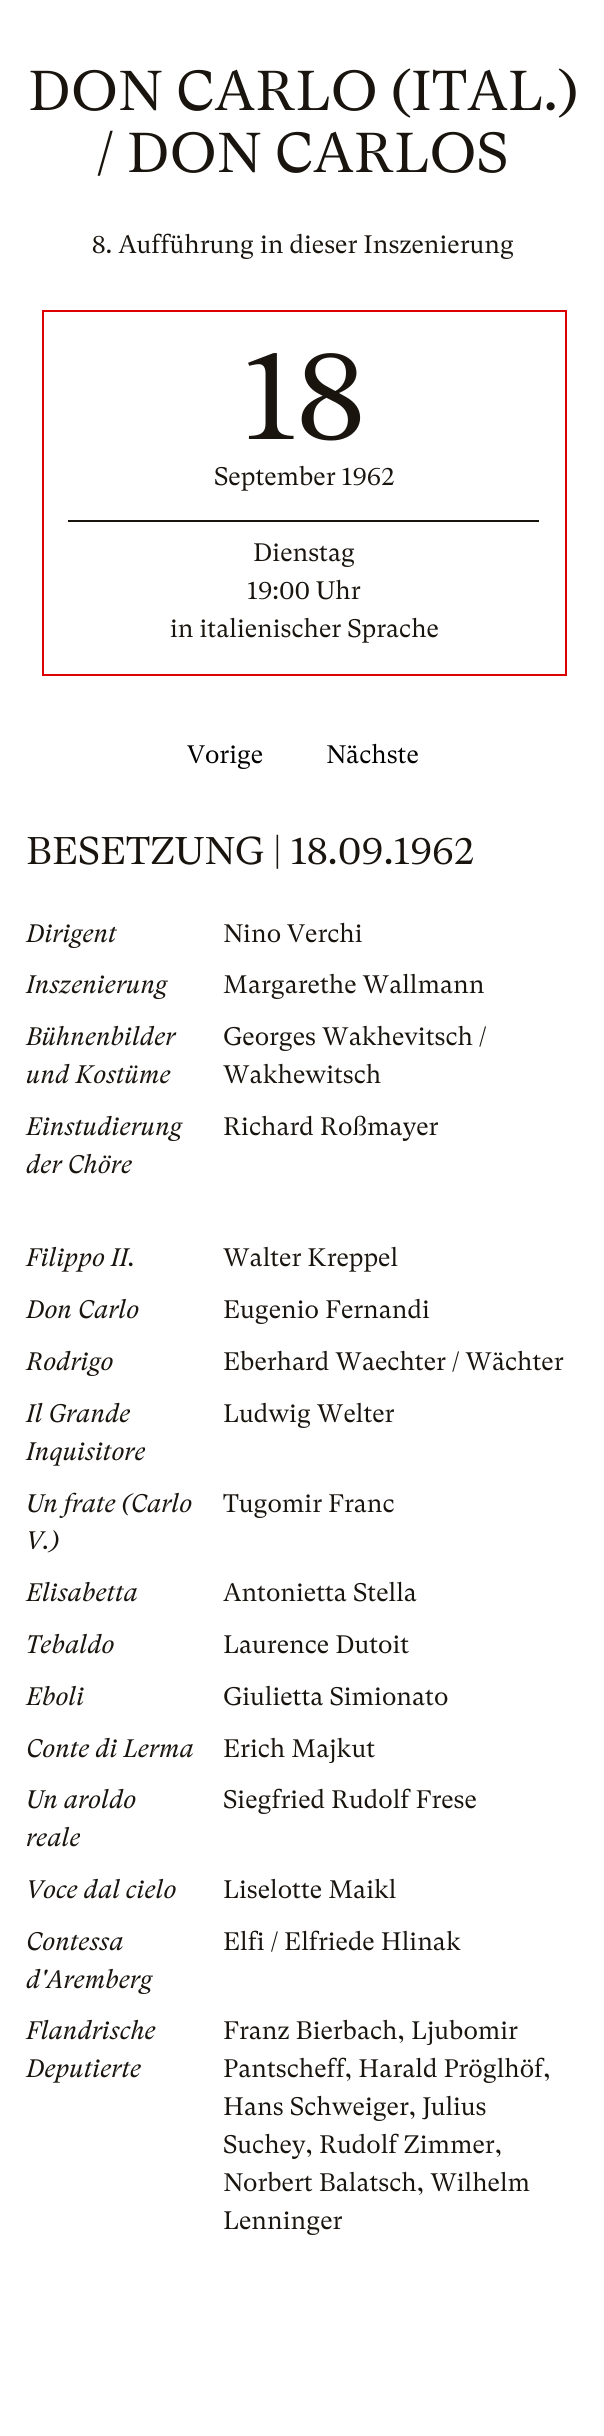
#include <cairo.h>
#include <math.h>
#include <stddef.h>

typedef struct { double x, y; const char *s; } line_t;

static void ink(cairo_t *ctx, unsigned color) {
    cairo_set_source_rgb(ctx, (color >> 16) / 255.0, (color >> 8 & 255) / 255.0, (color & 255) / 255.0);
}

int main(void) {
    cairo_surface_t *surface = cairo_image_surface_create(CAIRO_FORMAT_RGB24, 604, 2436);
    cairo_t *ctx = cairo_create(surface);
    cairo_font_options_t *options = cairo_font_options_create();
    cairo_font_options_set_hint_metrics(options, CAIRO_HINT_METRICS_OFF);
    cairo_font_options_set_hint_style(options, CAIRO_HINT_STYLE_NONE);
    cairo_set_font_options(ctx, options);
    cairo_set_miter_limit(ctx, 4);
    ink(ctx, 0xFFFFFF);
    cairo_paint(ctx);
    cairo_select_font_face(ctx, "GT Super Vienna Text", CAIRO_FONT_SLANT_NORMAL, CAIRO_FONT_WEIGHT_NORMAL);
    cairo_set_font_size(ctx, 56);
    ink(ctx, 0x19140E);
    cairo_move_to(ctx, 28, 110);
    cairo_show_text(ctx, "DON CARLO (ITAL.)");
    cairo_move_to(ctx, 97, 172);
    cairo_show_text(ctx, "/ DON CARLOS");
    cairo_set_font_size(ctx, 25.25);
    cairo_move_to(ctx, 92, 253);
    cairo_show_text(ctx, "8. Aufführung in dieser Inszenierung");
    cairo_rectangle(ctx, 43, 311, 523, 364);
    ink(ctx, 0xDE0000);
    cairo_stroke(ctx);
    cairo_set_font_size(ctx, 126);
    ink(ctx, 0x19140E);
    cairo_move_to(ctx, 243, 439);
    cairo_show_text(ctx, "18");
    cairo_rectangle(ctx, 68, 520, 471, 2);
    cairo_fill(ctx);
    cairo_set_font_size(ctx, 25.25);
    {
        static const line_t items[] = {
            {214, 485, "September 1962"},
            {253, 561, "Dienstag"},
            {247, 599, "19:00 Uhr"},
            {170, 637, "in italienischer Sprache"},
        };
        for (size_t i = 0; i < sizeof items / sizeof *items; i++) {
            cairo_move_to(ctx, items[i].x, items[i].y);
            cairo_show_text(ctx, items[i].s);
        }
    }
    ink(ctx, 0x000000);
    cairo_move_to(ctx, 187, 763);
    cairo_show_text(ctx, "Vorige");
    cairo_move_to(ctx, 326, 763);
    cairo_show_text(ctx, "Nächste");
    cairo_set_font_size(ctx, 38.5);
    ink(ctx, 0x19140E);
    cairo_move_to(ctx, 26, 864);
    cairo_show_text(ctx, "BESETZUNG | 18.09.1962");
    cairo_select_font_face(ctx, "GT Super Vienna Text", CAIRO_FONT_SLANT_ITALIC, CAIRO_FONT_WEIGHT_NORMAL);
    cairo_set_font_size(ctx, 25.25);
    cairo_move_to(ctx, 26, 942);
    cairo_show_text(ctx, "Dirigent");
    cairo_select_font_face(ctx, "GT Super Vienna Text", CAIRO_FONT_SLANT_NORMAL, CAIRO_FONT_WEIGHT_NORMAL);
    cairo_move_to(ctx, 223, 942);
    cairo_show_text(ctx, "Nino Verchi");
    cairo_select_font_face(ctx, "GT Super Vienna Text", CAIRO_FONT_SLANT_ITALIC, CAIRO_FONT_WEIGHT_NORMAL);
    cairo_move_to(ctx, 26, 993);
    cairo_show_text(ctx, "Inszenierung");
    cairo_select_font_face(ctx, "GT Super Vienna Text", CAIRO_FONT_SLANT_NORMAL, CAIRO_FONT_WEIGHT_NORMAL);
    cairo_move_to(ctx, 223, 993);
    cairo_show_text(ctx, "Margarethe Wallmann");
    cairo_select_font_face(ctx, "GT Super Vienna Text", CAIRO_FONT_SLANT_ITALIC, CAIRO_FONT_WEIGHT_NORMAL);
    cairo_move_to(ctx, 26, 1045);
    cairo_show_text(ctx, "Bühnenbilder");
    cairo_move_to(ctx, 26, 1083);
    cairo_show_text(ctx, "und Kostüme");
    cairo_select_font_face(ctx, "GT Super Vienna Text", CAIRO_FONT_SLANT_NORMAL, CAIRO_FONT_WEIGHT_NORMAL);
    cairo_move_to(ctx, 223, 1045);
    cairo_show_text(ctx, "Georges Wakhevitsch /");
    cairo_move_to(ctx, 223, 1083);
    cairo_show_text(ctx, "Wakhewitsch");
    cairo_select_font_face(ctx, "GT Super Vienna Text", CAIRO_FONT_SLANT_ITALIC, CAIRO_FONT_WEIGHT_NORMAL);
    cairo_move_to(ctx, 26, 1135);
    cairo_show_text(ctx, "Einstudierung");
    cairo_move_to(ctx, 26, 1173);
    cairo_show_text(ctx, "der Chöre");
    cairo_select_font_face(ctx, "GT Super Vienna Text", CAIRO_FONT_SLANT_NORMAL, CAIRO_FONT_WEIGHT_NORMAL);
    cairo_move_to(ctx, 223, 1135);
    cairo_show_text(ctx, "Richard Roßmayer");
    cairo_select_font_face(ctx, "GT Super Vienna Text", CAIRO_FONT_SLANT_ITALIC, CAIRO_FONT_WEIGHT_NORMAL);
    cairo_move_to(ctx, 26, 1266);
    cairo_show_text(ctx, "Filippo II.");
    cairo_select_font_face(ctx, "GT Super Vienna Text", CAIRO_FONT_SLANT_NORMAL, CAIRO_FONT_WEIGHT_NORMAL);
    cairo_move_to(ctx, 223, 1266);
    cairo_show_text(ctx, "Walter Kreppel");
    cairo_select_font_face(ctx, "GT Super Vienna Text", CAIRO_FONT_SLANT_ITALIC, CAIRO_FONT_WEIGHT_NORMAL);
    cairo_move_to(ctx, 26, 1318);
    cairo_show_text(ctx, "Don Carlo");
    cairo_select_font_face(ctx, "GT Super Vienna Text", CAIRO_FONT_SLANT_NORMAL, CAIRO_FONT_WEIGHT_NORMAL);
    cairo_move_to(ctx, 223, 1318);
    cairo_show_text(ctx, "Eugenio Fernandi");
    cairo_select_font_face(ctx, "GT Super Vienna Text", CAIRO_FONT_SLANT_ITALIC, CAIRO_FONT_WEIGHT_NORMAL);
    cairo_move_to(ctx, 26, 1370);
    cairo_show_text(ctx, "Rodrigo");
    cairo_select_font_face(ctx, "GT Super Vienna Text", CAIRO_FONT_SLANT_NORMAL, CAIRO_FONT_WEIGHT_NORMAL);
    cairo_move_to(ctx, 223, 1370);
    cairo_show_text(ctx, "Eberhard Waechter / Wächter");
    cairo_select_font_face(ctx, "GT Super Vienna Text", CAIRO_FONT_SLANT_ITALIC, CAIRO_FONT_WEIGHT_NORMAL);
    cairo_move_to(ctx, 26, 1422);
    cairo_show_text(ctx, "Il Grande");
    cairo_move_to(ctx, 26, 1460);
    cairo_show_text(ctx, "Inquisitore");
    cairo_select_font_face(ctx, "GT Super Vienna Text", CAIRO_FONT_SLANT_NORMAL, CAIRO_FONT_WEIGHT_NORMAL);
    cairo_move_to(ctx, 223, 1422);
    cairo_show_text(ctx, "Ludwig Welter");
    cairo_select_font_face(ctx, "GT Super Vienna Text", CAIRO_FONT_SLANT_ITALIC, CAIRO_FONT_WEIGHT_NORMAL);
    cairo_move_to(ctx, 26, 1512);
    cairo_show_text(ctx, "Un frate (Carlo");
    cairo_move_to(ctx, 26, 1549);
    cairo_show_text(ctx, "V.)");
    cairo_select_font_face(ctx, "GT Super Vienna Text", CAIRO_FONT_SLANT_NORMAL, CAIRO_FONT_WEIGHT_NORMAL);
    cairo_move_to(ctx, 223, 1512);
    cairo_show_text(ctx, "Tugomir Franc");
    cairo_select_font_face(ctx, "GT Super Vienna Text", CAIRO_FONT_SLANT_ITALIC, CAIRO_FONT_WEIGHT_NORMAL);
    cairo_move_to(ctx, 26, 1601);
    cairo_show_text(ctx, "Elisabetta");
    cairo_select_font_face(ctx, "GT Super Vienna Text", CAIRO_FONT_SLANT_NORMAL, CAIRO_FONT_WEIGHT_NORMAL);
    cairo_move_to(ctx, 223, 1601);
    cairo_show_text(ctx, "Antonietta Stella");
    cairo_select_font_face(ctx, "GT Super Vienna Text", CAIRO_FONT_SLANT_ITALIC, CAIRO_FONT_WEIGHT_NORMAL);
    cairo_move_to(ctx, 26, 1653);
    cairo_show_text(ctx, "Tebaldo");
    cairo_select_font_face(ctx, "GT Super Vienna Text", CAIRO_FONT_SLANT_NORMAL, CAIRO_FONT_WEIGHT_NORMAL);
    cairo_move_to(ctx, 223, 1653);
    cairo_show_text(ctx, "Laurence Dutoit");
    cairo_select_font_face(ctx, "GT Super Vienna Text", CAIRO_FONT_SLANT_ITALIC, CAIRO_FONT_WEIGHT_NORMAL);
    cairo_move_to(ctx, 26, 1705);
    cairo_show_text(ctx, "Eboli");
    cairo_select_font_face(ctx, "GT Super Vienna Text", CAIRO_FONT_SLANT_NORMAL, CAIRO_FONT_WEIGHT_NORMAL);
    cairo_move_to(ctx, 223, 1705);
    cairo_show_text(ctx, "Giulietta Simionato");
    cairo_select_font_face(ctx, "GT Super Vienna Text", CAIRO_FONT_SLANT_ITALIC, CAIRO_FONT_WEIGHT_NORMAL);
    cairo_move_to(ctx, 26, 1757);
    cairo_show_text(ctx, "Conte di Lerma");
    cairo_select_font_face(ctx, "GT Super Vienna Text", CAIRO_FONT_SLANT_NORMAL, CAIRO_FONT_WEIGHT_NORMAL);
    cairo_move_to(ctx, 223, 1757);
    cairo_show_text(ctx, "Erich Majkut");
    cairo_select_font_face(ctx, "GT Super Vienna Text", CAIRO_FONT_SLANT_ITALIC, CAIRO_FONT_WEIGHT_NORMAL);
    cairo_move_to(ctx, 26, 1808);
    cairo_show_text(ctx, "Un aroldo");
    cairo_move_to(ctx, 26, 1846);
    cairo_show_text(ctx, "reale");
    cairo_select_font_face(ctx, "GT Super Vienna Text", CAIRO_FONT_SLANT_NORMAL, CAIRO_FONT_WEIGHT_NORMAL);
    cairo_move_to(ctx, 223, 1808);
    cairo_show_text(ctx, "Siegfried Rudolf Frese");
    cairo_select_font_face(ctx, "GT Super Vienna Text", CAIRO_FONT_SLANT_ITALIC, CAIRO_FONT_WEIGHT_NORMAL);
    cairo_move_to(ctx, 26, 1898);
    cairo_show_text(ctx, "Voce dal cielo");
    cairo_select_font_face(ctx, "GT Super Vienna Text", CAIRO_FONT_SLANT_NORMAL, CAIRO_FONT_WEIGHT_NORMAL);
    cairo_move_to(ctx, 223, 1898);
    cairo_show_text(ctx, "Liselotte Maikl");
    cairo_select_font_face(ctx, "GT Super Vienna Text", CAIRO_FONT_SLANT_ITALIC, CAIRO_FONT_WEIGHT_NORMAL);
    cairo_move_to(ctx, 26, 1950);
    cairo_show_text(ctx, "Contessa");
    cairo_move_to(ctx, 26, 1988);
    cairo_show_text(ctx, "d'Aremberg");
    cairo_select_font_face(ctx, "GT Super Vienna Text", CAIRO_FONT_SLANT_NORMAL, CAIRO_FONT_WEIGHT_NORMAL);
    cairo_move_to(ctx, 223, 1950);
    cairo_show_text(ctx, "Elfi / Elfriede Hlinak");
    cairo_select_font_face(ctx, "GT Super Vienna Text", CAIRO_FONT_SLANT_ITALIC, CAIRO_FONT_WEIGHT_NORMAL);
    cairo_move_to(ctx, 26, 2039);
    cairo_show_text(ctx, "Flandrische");
    cairo_move_to(ctx, 26, 2077);
    cairo_show_text(ctx, "Deputierte");
    cairo_select_font_face(ctx, "GT Super Vienna Text", CAIRO_FONT_SLANT_NORMAL, CAIRO_FONT_WEIGHT_NORMAL);
    {
        static const line_t items[] = {
            {223, 2039, "Franz Bierbach, Ljubomir"},
            {223, 2077, "Pantscheff, Harald Pröglhöf,"},
            {223, 2115, "Hans Schweiger, Julius"},
            {223, 2153, "Suchey, Rudolf Zimmer,"},
            {223, 2191, "Norbert Balatsch, Wilhelm"},
            {223, 2229, "Lenninger"},
        };
        for (size_t i = 0; i < sizeof items / sizeof *items; i++) {
            cairo_move_to(ctx, items[i].x, items[i].y);
            cairo_show_text(ctx, items[i].s);
        }
    }
    cairo_surface_write_to_png(surface, "image.png");
    cairo_font_options_destroy(options);
    cairo_destroy(ctx);
    cairo_surface_destroy(surface);
    return 0;
}
